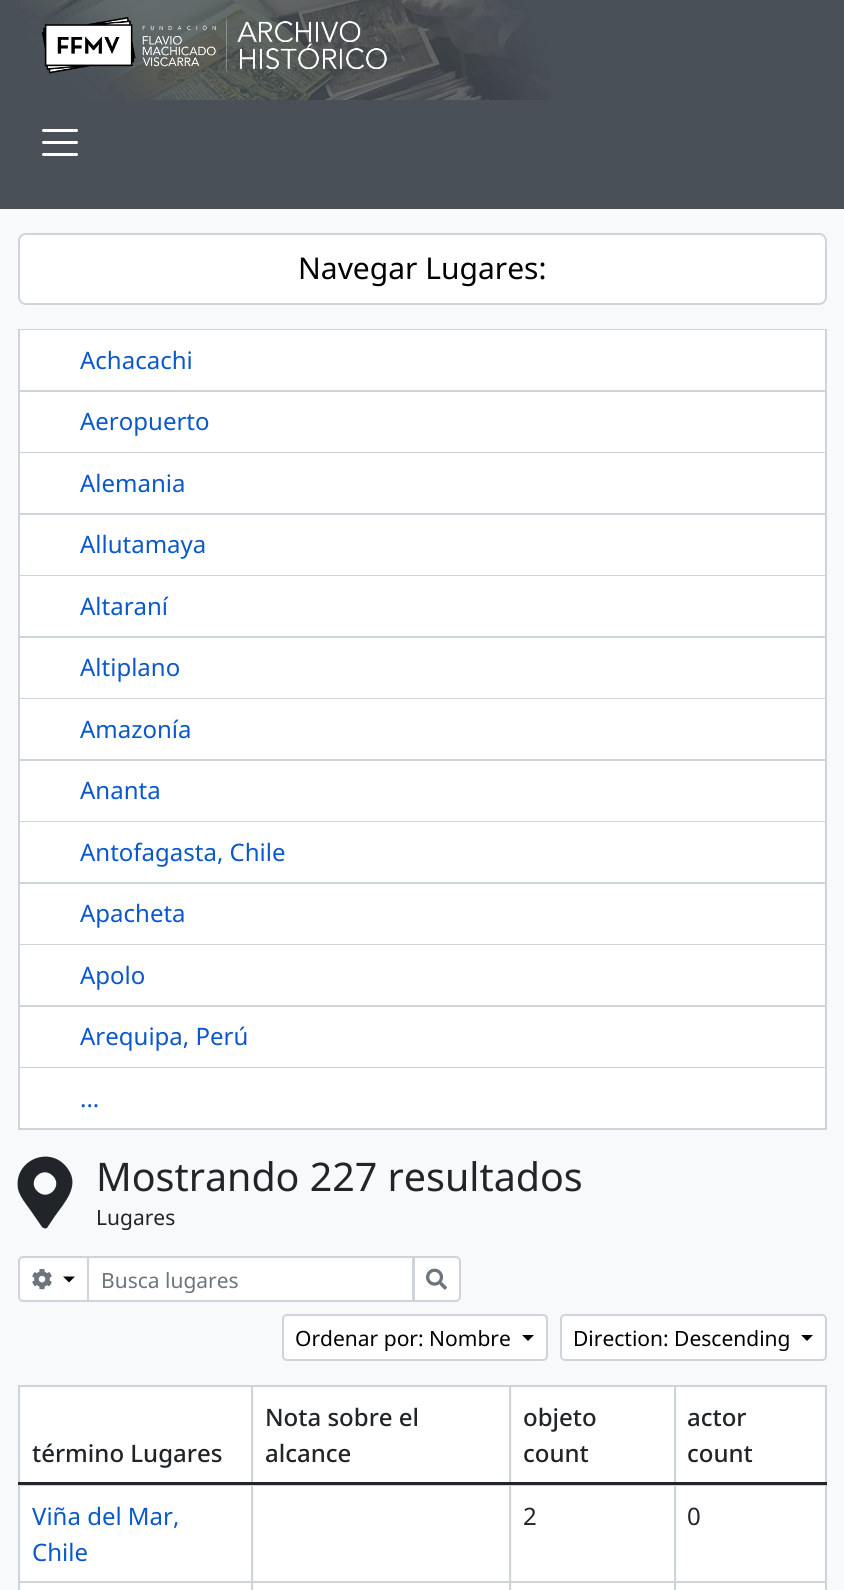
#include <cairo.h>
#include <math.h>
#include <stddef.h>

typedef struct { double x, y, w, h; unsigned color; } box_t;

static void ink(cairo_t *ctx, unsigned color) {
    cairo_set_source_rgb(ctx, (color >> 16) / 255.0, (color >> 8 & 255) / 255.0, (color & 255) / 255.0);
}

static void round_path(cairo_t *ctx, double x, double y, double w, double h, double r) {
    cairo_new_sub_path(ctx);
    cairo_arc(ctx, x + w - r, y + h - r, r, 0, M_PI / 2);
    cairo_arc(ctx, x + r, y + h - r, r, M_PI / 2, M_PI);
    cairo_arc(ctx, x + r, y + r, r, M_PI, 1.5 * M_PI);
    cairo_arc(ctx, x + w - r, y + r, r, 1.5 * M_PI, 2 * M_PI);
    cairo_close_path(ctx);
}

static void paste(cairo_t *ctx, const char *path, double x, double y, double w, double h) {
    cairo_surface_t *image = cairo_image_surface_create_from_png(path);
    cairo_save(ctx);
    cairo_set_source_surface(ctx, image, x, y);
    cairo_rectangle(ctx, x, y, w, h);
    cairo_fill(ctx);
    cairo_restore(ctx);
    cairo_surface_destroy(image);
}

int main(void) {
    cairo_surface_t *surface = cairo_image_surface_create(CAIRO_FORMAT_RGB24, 844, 1590);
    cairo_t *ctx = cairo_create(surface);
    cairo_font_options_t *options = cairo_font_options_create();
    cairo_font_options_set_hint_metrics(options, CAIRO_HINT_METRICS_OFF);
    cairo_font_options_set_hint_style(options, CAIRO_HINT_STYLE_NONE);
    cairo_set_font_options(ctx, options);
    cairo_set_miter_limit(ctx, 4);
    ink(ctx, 0xF8F9FA);
    cairo_paint(ctx);
    ink(ctx, 0x495057);
    cairo_rectangle(ctx, 0, 0, 844, 209);
    cairo_fill(ctx);
    paste(ctx, "media/1.png", 20, 0, 531, 100);
    cairo_new_path(ctx);
    cairo_move_to(ctx, 43.5, 130.5);
    cairo_line_to(ctx, 76.5, 130.5);
    cairo_move_to(ctx, 43.5, 142.5);
    cairo_line_to(ctx, 76.5, 142.5);
    cairo_move_to(ctx, 43.5, 154.5);
    cairo_line_to(ctx, 76.5, 154.5);
    ink(ctx, 0xFFFFFF);
    cairo_set_line_width(ctx, 3);
    cairo_set_line_cap(ctx, CAIRO_LINE_CAP_ROUND);
    cairo_stroke(ctx);
    round_path(ctx, 19, 234, 807, 70, 7);
    cairo_fill_preserve(ctx);
    ink(ctx, 0xCED4DA);
    cairo_set_line_width(ctx, 2);
    cairo_set_line_cap(ctx, CAIRO_LINE_CAP_BUTT);
    cairo_stroke(ctx);
    cairo_select_font_face(ctx, "Noto Sans", CAIRO_FONT_SLANT_NORMAL, CAIRO_FONT_WEIGHT_NORMAL);
    cairo_set_font_size(ctx, 30);
    ink(ctx, 0x000000);
    cairo_move_to(ctx, 298, 279);
    cairo_show_text(ctx, "Navegar Lugares:");
    {
        static const box_t items[] = {
            {18, 329, 809, 1, 0xCED4DA},
            {20, 330, 805, 60, 0xFFFFFF},
            {825, 330, 2, 800, 0xCED4DA},
            {18, 390, 809, 2, 0xCED4DA},
            {18, 330, 2, 62, 0xCED4DA},
        };
        for (size_t i = 0; i < sizeof items / sizeof *items; i++) {
            ink(ctx, items[i].color);
            cairo_rectangle(ctx, items[i].x, items[i].y, items[i].w, items[i].h);
            cairo_fill(ctx);
        }
    }
    cairo_set_font_size(ctx, 24);
    ink(ctx, 0x0A58CA);
    cairo_move_to(ctx, 80, 369);
    cairo_show_text(ctx, "Achacachi");
    {
        static const box_t items[] = {
            {20, 392, 805, 60, 0xFFFFFF},
            {18, 452, 809, 1, 0xCED4DA},
            {18, 392, 2, 61, 0xCED4DA},
        };
        for (size_t i = 0; i < sizeof items / sizeof *items; i++) {
            ink(ctx, items[i].color);
            cairo_rectangle(ctx, items[i].x, items[i].y, items[i].w, items[i].h);
            cairo_fill(ctx);
        }
    }
    ink(ctx, 0x0A58CA);
    cairo_move_to(ctx, 80, 430);
    cairo_show_text(ctx, "Aeropuerto");
    {
        static const box_t items[] = {
            {20, 453, 805, 60, 0xFFFFFF},
            {18, 513, 809, 2, 0xCED4DA},
            {18, 453, 2, 62, 0xCED4DA},
        };
        for (size_t i = 0; i < sizeof items / sizeof *items; i++) {
            ink(ctx, items[i].color);
            cairo_rectangle(ctx, items[i].x, items[i].y, items[i].w, items[i].h);
            cairo_fill(ctx);
        }
    }
    ink(ctx, 0x0A58CA);
    cairo_move_to(ctx, 80, 492);
    cairo_show_text(ctx, "Alemania");
    {
        static const box_t items[] = {
            {20, 515, 805, 60, 0xFFFFFF},
            {18, 575, 809, 1, 0xCED4DA},
            {18, 515, 2, 61, 0xCED4DA},
        };
        for (size_t i = 0; i < sizeof items / sizeof *items; i++) {
            ink(ctx, items[i].color);
            cairo_rectangle(ctx, items[i].x, items[i].y, items[i].w, items[i].h);
            cairo_fill(ctx);
        }
    }
    ink(ctx, 0x0A58CA);
    cairo_move_to(ctx, 80, 553);
    cairo_show_text(ctx, "Allutamaya");
    {
        static const box_t items[] = {
            {20, 576, 805, 60, 0xFFFFFF},
            {18, 636, 809, 2, 0xCED4DA},
            {18, 576, 2, 62, 0xCED4DA},
        };
        for (size_t i = 0; i < sizeof items / sizeof *items; i++) {
            ink(ctx, items[i].color);
            cairo_rectangle(ctx, items[i].x, items[i].y, items[i].w, items[i].h);
            cairo_fill(ctx);
        }
    }
    ink(ctx, 0x0A58CA);
    cairo_move_to(ctx, 80, 615);
    cairo_show_text(ctx, "Altaraní");
    {
        static const box_t items[] = {
            {20, 638, 805, 60, 0xFFFFFF},
            {18, 698, 809, 1, 0xCED4DA},
            {18, 638, 2, 61, 0xCED4DA},
        };
        for (size_t i = 0; i < sizeof items / sizeof *items; i++) {
            ink(ctx, items[i].color);
            cairo_rectangle(ctx, items[i].x, items[i].y, items[i].w, items[i].h);
            cairo_fill(ctx);
        }
    }
    ink(ctx, 0x0A58CA);
    cairo_move_to(ctx, 80, 676);
    cairo_show_text(ctx, "Altiplano");
    {
        static const box_t items[] = {
            {20, 699, 805, 60, 0xFFFFFF},
            {18, 759, 809, 2, 0xCED4DA},
            {18, 699, 2, 62, 0xCED4DA},
        };
        for (size_t i = 0; i < sizeof items / sizeof *items; i++) {
            ink(ctx, items[i].color);
            cairo_rectangle(ctx, items[i].x, items[i].y, items[i].w, items[i].h);
            cairo_fill(ctx);
        }
    }
    ink(ctx, 0x0A58CA);
    cairo_move_to(ctx, 80, 738);
    cairo_show_text(ctx, "Amazonía");
    {
        static const box_t items[] = {
            {20, 761, 805, 60, 0xFFFFFF},
            {18, 821, 809, 1, 0xCED4DA},
            {18, 761, 2, 61, 0xCED4DA},
        };
        for (size_t i = 0; i < sizeof items / sizeof *items; i++) {
            ink(ctx, items[i].color);
            cairo_rectangle(ctx, items[i].x, items[i].y, items[i].w, items[i].h);
            cairo_fill(ctx);
        }
    }
    ink(ctx, 0x0A58CA);
    cairo_move_to(ctx, 80, 799);
    cairo_show_text(ctx, "Ananta");
    {
        static const box_t items[] = {
            {20, 822, 805, 60, 0xFFFFFF},
            {18, 882, 809, 2, 0xCED4DA},
            {18, 822, 2, 62, 0xCED4DA},
        };
        for (size_t i = 0; i < sizeof items / sizeof *items; i++) {
            ink(ctx, items[i].color);
            cairo_rectangle(ctx, items[i].x, items[i].y, items[i].w, items[i].h);
            cairo_fill(ctx);
        }
    }
    ink(ctx, 0x0A58CA);
    cairo_move_to(ctx, 80, 861);
    cairo_show_text(ctx, "Antofagasta, Chile");
    {
        static const box_t items[] = {
            {20, 884, 805, 60, 0xFFFFFF},
            {18, 944, 809, 1, 0xCED4DA},
            {18, 884, 2, 61, 0xCED4DA},
        };
        for (size_t i = 0; i < sizeof items / sizeof *items; i++) {
            ink(ctx, items[i].color);
            cairo_rectangle(ctx, items[i].x, items[i].y, items[i].w, items[i].h);
            cairo_fill(ctx);
        }
    }
    ink(ctx, 0x0A58CA);
    cairo_move_to(ctx, 80, 922);
    cairo_show_text(ctx, "Apacheta");
    {
        static const box_t items[] = {
            {20, 945, 805, 60, 0xFFFFFF},
            {18, 1005, 809, 2, 0xCED4DA},
            {18, 945, 2, 62, 0xCED4DA},
        };
        for (size_t i = 0; i < sizeof items / sizeof *items; i++) {
            ink(ctx, items[i].color);
            cairo_rectangle(ctx, items[i].x, items[i].y, items[i].w, items[i].h);
            cairo_fill(ctx);
        }
    }
    ink(ctx, 0x0A58CA);
    cairo_move_to(ctx, 80, 984);
    cairo_show_text(ctx, "Apolo");
    {
        static const box_t items[] = {
            {20, 1007, 805, 60, 0xFFFFFF},
            {18, 1067, 809, 1, 0xCED4DA},
            {18, 1007, 2, 61, 0xCED4DA},
        };
        for (size_t i = 0; i < sizeof items / sizeof *items; i++) {
            ink(ctx, items[i].color);
            cairo_rectangle(ctx, items[i].x, items[i].y, items[i].w, items[i].h);
            cairo_fill(ctx);
        }
    }
    ink(ctx, 0x0A58CA);
    cairo_move_to(ctx, 80, 1045);
    cairo_show_text(ctx, "Arequipa, Perú");
    {
        static const box_t items[] = {
            {20, 1068, 805, 60, 0xFFFFFF},
            {18, 1128, 809, 2, 0xCED4DA},
            {18, 1068, 2, 62, 0xCED4DA},
        };
        for (size_t i = 0; i < sizeof items / sizeof *items; i++) {
            ink(ctx, items[i].color);
            cairo_rectangle(ctx, items[i].x, items[i].y, items[i].w, items[i].h);
            cairo_fill(ctx);
        }
    }
    ink(ctx, 0x0A58CA);
    cairo_move_to(ctx, 80, 1107);
    cairo_show_text(ctx, "...");
    ink(ctx, 0x212529);
    cairo_new_path(ctx);
    cairo_move_to(ctx, 42, 1227);
    cairo_line_to(ctx, 31, 1211);
    cairo_curve_to(ctx, 26, 1204, 20, 1197, 18, 1189);
    cairo_curve_to(ctx, 13, 1160, 51, 1144, 68, 1169);
    cairo_curve_to(ctx, 80, 1186, 65, 1202, 55, 1216);
    cairo_line_to(ctx, 47, 1228);
    cairo_curve_to(ctx, 45, 1229, 43, 1228, 42, 1227);
    cairo_close_path(ctx);
    cairo_move_to(ctx, 37, 1191);
    cairo_curve_to(ctx, 48, 1202, 63, 1186, 53, 1176);
    cairo_curve_to(ctx, 42, 1165, 27, 1181, 37, 1191);
    cairo_close_path(ctx);
    cairo_fill(ctx);
    cairo_set_font_size(ctx, 39.4);
    cairo_move_to(ctx, 96, 1191);
    cairo_show_text(ctx, "Mostrando 227 resultados");
    cairo_set_font_size(ctx, 21);
    cairo_move_to(ctx, 96, 1225);
    cairo_show_text(ctx, "Lugares");
    ink(ctx, 0xFFFFFF);
    cairo_rectangle(ctx, 88, 1257, 325, 44);
    cairo_fill_preserve(ctx);
    ink(ctx, 0xCED4DA);
    cairo_stroke(ctx);
    ink(ctx, 0xFFFFFF);
    cairo_new_path(ctx);
    cairo_move_to(ctx, 23, 1257);
    cairo_line_to(ctx, 88, 1257);
    cairo_line_to(ctx, 88, 1301);
    cairo_line_to(ctx, 23, 1301);
    cairo_curve_to(ctx, 21, 1301, 19, 1299, 19, 1297);
    cairo_line_to(ctx, 19, 1261);
    cairo_curve_to(ctx, 19, 1259, 21, 1257, 23, 1257);
    cairo_close_path(ctx);
    cairo_fill_preserve(ctx);
    ink(ctx, 0xCED4DA);
    cairo_stroke(ctx);
    paste(ctx, "media/2.png", 32, 1269, 20, 21);
    ink(ctx, 0x000000);
    cairo_new_path(ctx);
    cairo_move_to(ctx, 63, 1276.5);
    cairo_line_to(ctx, 75, 1276.5);
    cairo_line_to(ctx, 69, 1282.5);
    cairo_close_path(ctx);
    cairo_fill(ctx);
    ink(ctx, 0x6C757D);
    cairo_move_to(ctx, 101, 1288);
    cairo_show_text(ctx, "Busca lugares");
    ink(ctx, 0xFFFFFF);
    cairo_new_path(ctx);
    cairo_move_to(ctx, 414, 1257);
    cairo_line_to(ctx, 456, 1257);
    cairo_curve_to(ctx, 458, 1257, 460, 1259, 460, 1261);
    cairo_line_to(ctx, 460, 1297);
    cairo_curve_to(ctx, 460, 1299, 458, 1301, 456, 1301);
    cairo_line_to(ctx, 414, 1301);
    cairo_close_path(ctx);
    cairo_fill_preserve(ctx);
    ink(ctx, 0xCED4DA);
    cairo_stroke(ctx);
    paste(ctx, "media/3.png", 426, 1268, 21, 22);
    ink(ctx, 0xFFFFFF);
    round_path(ctx, 283, 1315, 264, 45, 4);
    cairo_fill_preserve(ctx);
    ink(ctx, 0xCED4DA);
    cairo_stroke(ctx);
    ink(ctx, 0x000000);
    cairo_move_to(ctx, 295, 1346);
    cairo_show_text(ctx, "Ordenar por: Nombre");
    cairo_new_path(ctx);
    cairo_move_to(ctx, 522, 1335);
    cairo_line_to(ctx, 534, 1335);
    cairo_line_to(ctx, 528, 1341);
    cairo_close_path(ctx);
    cairo_fill(ctx);
    ink(ctx, 0xFFFFFF);
    round_path(ctx, 561, 1315, 265, 45, 4);
    cairo_fill_preserve(ctx);
    ink(ctx, 0xCED4DA);
    cairo_stroke(ctx);
    ink(ctx, 0x000000);
    cairo_move_to(ctx, 573, 1346);
    cairo_show_text(ctx, "Direction: Descending");
    cairo_new_path(ctx);
    cairo_move_to(ctx, 801, 1335);
    cairo_line_to(ctx, 813, 1335);
    cairo_line_to(ctx, 807, 1341);
    cairo_close_path(ctx);
    cairo_fill(ctx);
    {
        static const box_t items[] = {
            {18, 1385, 809, 2, 0xCED4DA},
            {18, 1485, 809, 1, 0xCED4DA},
            {21, 1387, 230, 95, 0xFFFFFF},
        };
        for (size_t i = 0; i < sizeof items / sizeof *items; i++) {
            ink(ctx, items[i].color);
            cairo_rectangle(ctx, items[i].x, items[i].y, items[i].w, items[i].h);
            cairo_fill(ctx);
        }
    }
    cairo_select_font_face(ctx, "Noto Sans Medium", CAIRO_FONT_SLANT_NORMAL, CAIRO_FONT_WEIGHT_NORMAL);
    cairo_set_font_size(ctx, 24);
    ink(ctx, 0x212529);
    cairo_move_to(ctx, 32, 1462);
    cairo_show_text(ctx, "término Lugares");
    ink(ctx, 0xFFFFFF);
    cairo_rectangle(ctx, 254, 1387, 255, 95);
    cairo_fill(ctx);
    ink(ctx, 0x212529);
    cairo_move_to(ctx, 265, 1426);
    cairo_show_text(ctx, "Nota sobre el");
    cairo_move_to(ctx, 265, 1462);
    cairo_show_text(ctx, "alcance");
    ink(ctx, 0xFFFFFF);
    cairo_rectangle(ctx, 512, 1387, 162, 95);
    cairo_fill(ctx);
    ink(ctx, 0x212529);
    cairo_move_to(ctx, 523, 1426);
    cairo_show_text(ctx, "objeto");
    cairo_move_to(ctx, 523, 1462);
    cairo_show_text(ctx, "count");
    ink(ctx, 0xFFFFFF);
    cairo_rectangle(ctx, 677, 1387, 148, 95);
    cairo_fill(ctx);
    ink(ctx, 0x212529);
    cairo_move_to(ctx, 687, 1426);
    cairo_show_text(ctx, "actor");
    cairo_move_to(ctx, 687, 1462);
    cairo_show_text(ctx, "count");
    {
        static const box_t items[] = {
            {18, 1581, 809, 2, 0xCED4DA},
            {18, 1385, 2, 205, 0xCED4DA},
            {251, 1385, 2, 205, 0xCED4DA},
            {509, 1385, 2, 205, 0xCED4DA},
            {825, 1385, 2, 205, 0xCED4DA},
            {674, 1385, 2, 205, 0xCED4DA},
            {18, 1482, 809, 3, 0x212529},
            {21, 1583, 230, 7, 0xFFFFFF},
            {254, 1583, 255, 7, 0xFFFFFF},
            {512, 1583, 162, 7, 0xFFFFFF},
            {677, 1583, 148, 7, 0xFFFFFF},
            {21, 1486, 230, 95, 0xFFFFFF},
        };
        for (size_t i = 0; i < sizeof items / sizeof *items; i++) {
            ink(ctx, items[i].color);
            cairo_rectangle(ctx, items[i].x, items[i].y, items[i].w, items[i].h);
            cairo_fill(ctx);
        }
    }
    cairo_select_font_face(ctx, "Noto Sans", CAIRO_FONT_SLANT_NORMAL, CAIRO_FONT_WEIGHT_NORMAL);
    ink(ctx, 0x0A58CA);
    cairo_move_to(ctx, 32, 1525);
    cairo_show_text(ctx, "Viña del Mar,");
    cairo_move_to(ctx, 32, 1561);
    cairo_show_text(ctx, "Chile");
    ink(ctx, 0xFFFFFF);
    cairo_rectangle(ctx, 254, 1486, 255, 95);
    cairo_fill(ctx);
    cairo_rectangle(ctx, 512, 1486, 162, 95);
    cairo_fill(ctx);
    ink(ctx, 0x212529);
    cairo_move_to(ctx, 523, 1525);
    cairo_show_text(ctx, "2");
    ink(ctx, 0xFFFFFF);
    cairo_rectangle(ctx, 677, 1486, 148, 95);
    cairo_fill(ctx);
    ink(ctx, 0x212529);
    cairo_move_to(ctx, 687, 1525);
    cairo_show_text(ctx, "0");
    cairo_surface_write_to_png(surface, "image.png");
    cairo_font_options_destroy(options);
    cairo_destroy(ctx);
    cairo_surface_destroy(surface);
    return 0;
}
